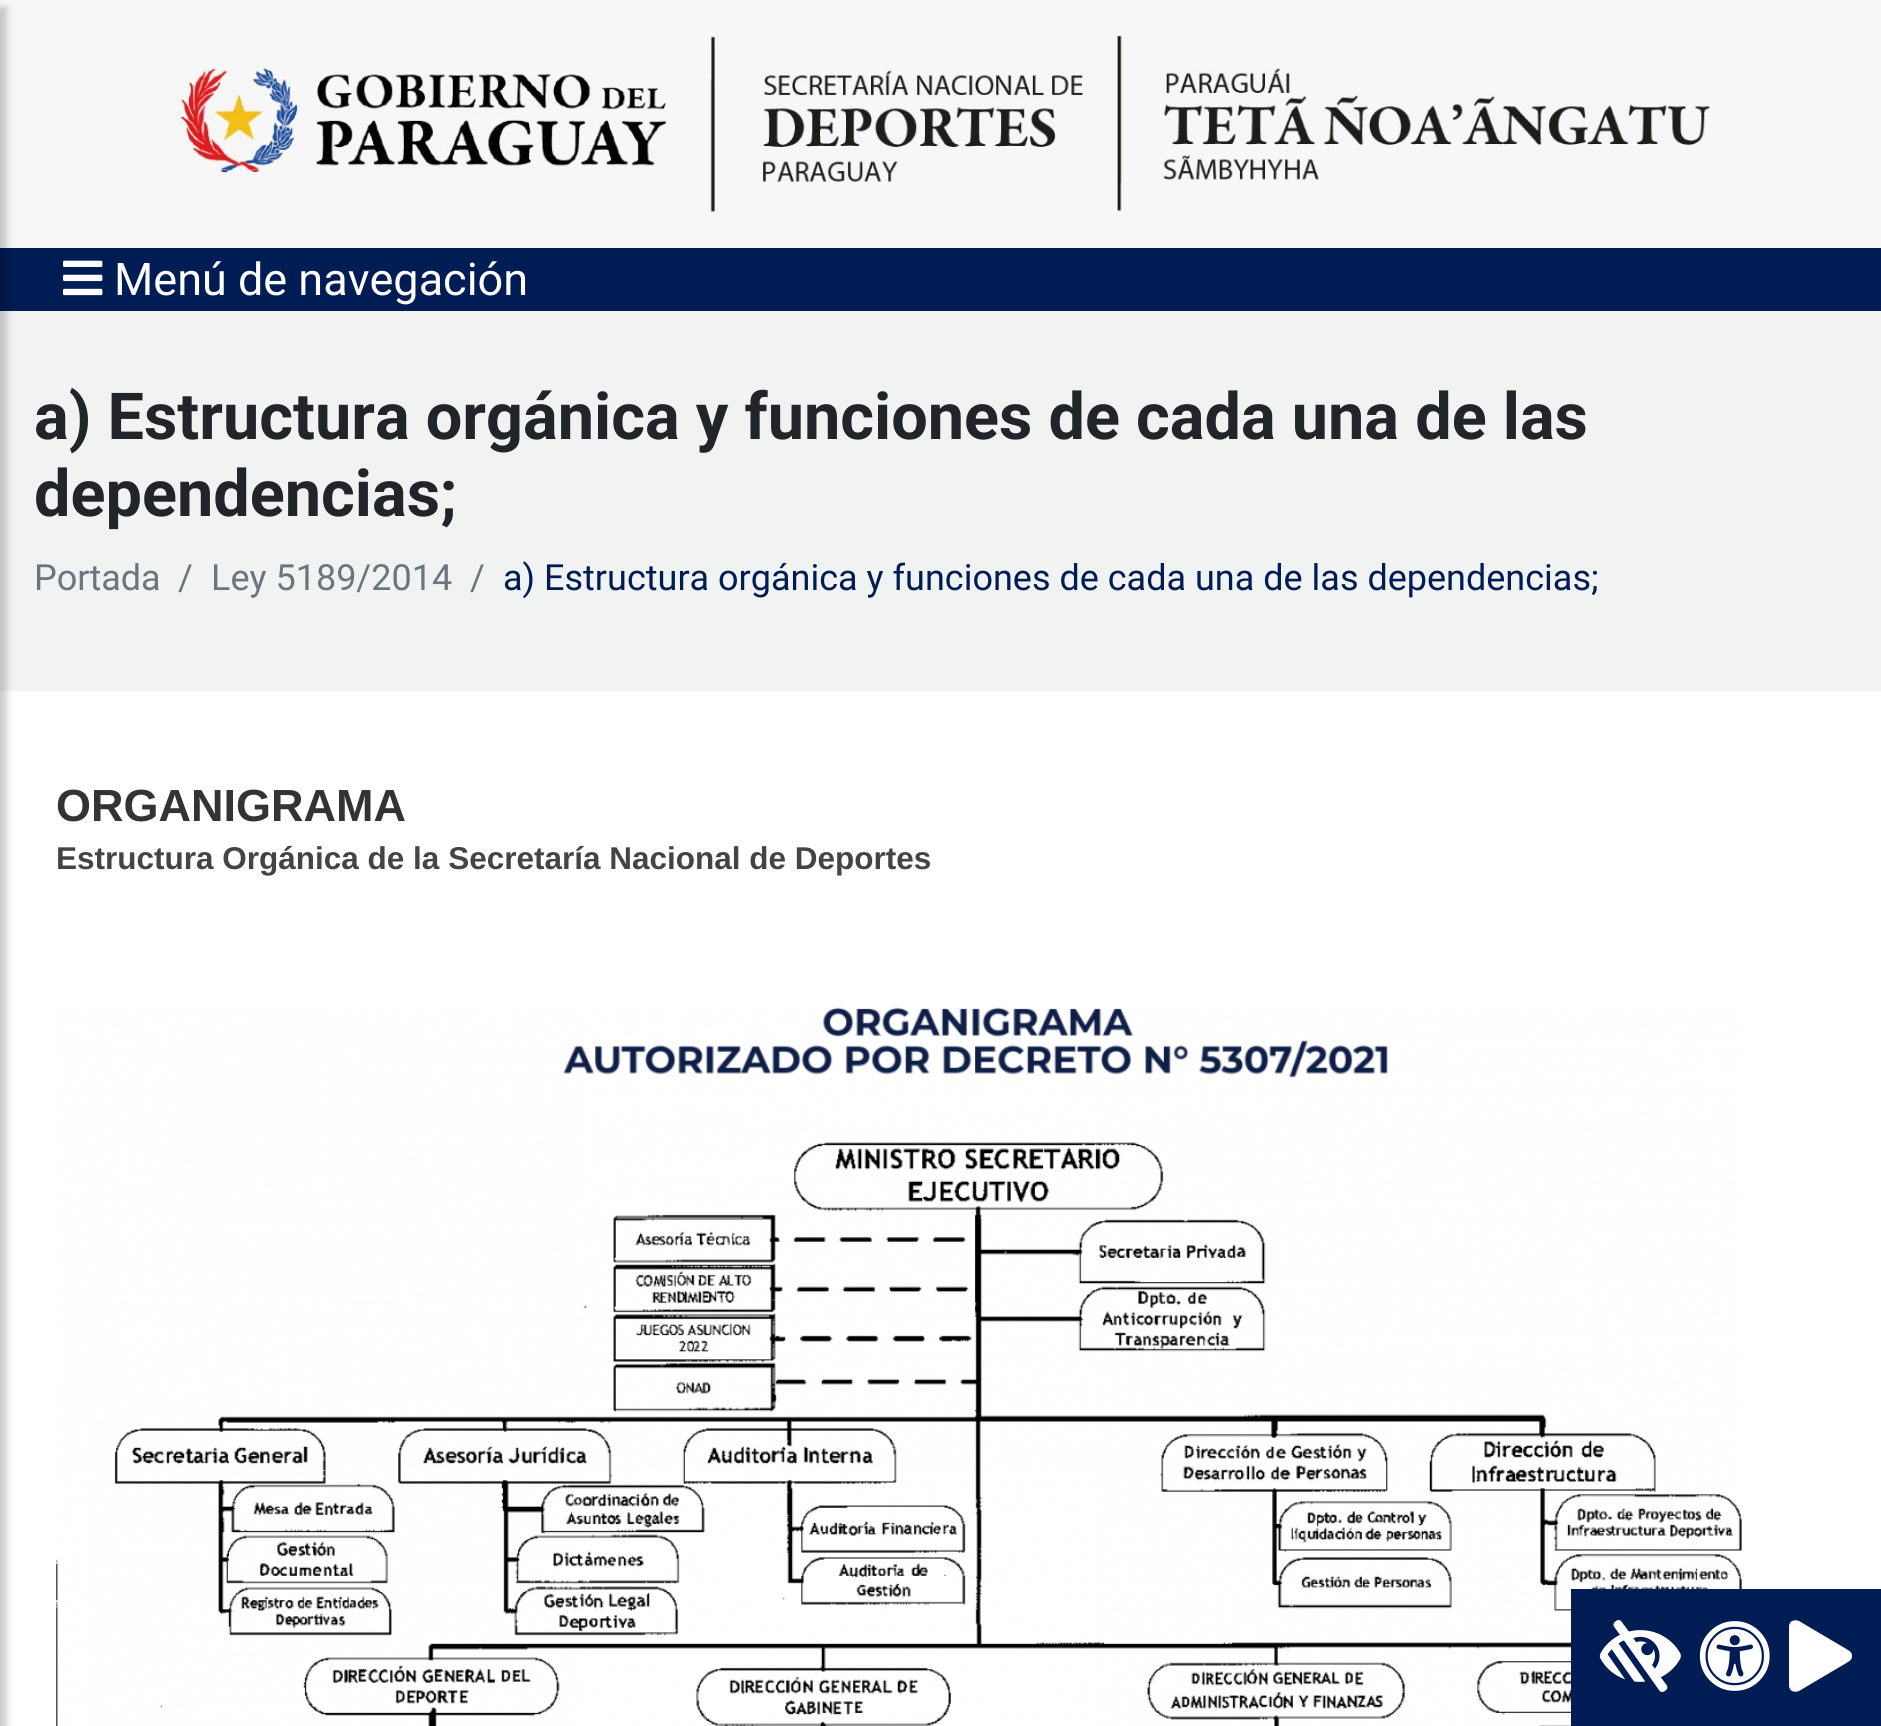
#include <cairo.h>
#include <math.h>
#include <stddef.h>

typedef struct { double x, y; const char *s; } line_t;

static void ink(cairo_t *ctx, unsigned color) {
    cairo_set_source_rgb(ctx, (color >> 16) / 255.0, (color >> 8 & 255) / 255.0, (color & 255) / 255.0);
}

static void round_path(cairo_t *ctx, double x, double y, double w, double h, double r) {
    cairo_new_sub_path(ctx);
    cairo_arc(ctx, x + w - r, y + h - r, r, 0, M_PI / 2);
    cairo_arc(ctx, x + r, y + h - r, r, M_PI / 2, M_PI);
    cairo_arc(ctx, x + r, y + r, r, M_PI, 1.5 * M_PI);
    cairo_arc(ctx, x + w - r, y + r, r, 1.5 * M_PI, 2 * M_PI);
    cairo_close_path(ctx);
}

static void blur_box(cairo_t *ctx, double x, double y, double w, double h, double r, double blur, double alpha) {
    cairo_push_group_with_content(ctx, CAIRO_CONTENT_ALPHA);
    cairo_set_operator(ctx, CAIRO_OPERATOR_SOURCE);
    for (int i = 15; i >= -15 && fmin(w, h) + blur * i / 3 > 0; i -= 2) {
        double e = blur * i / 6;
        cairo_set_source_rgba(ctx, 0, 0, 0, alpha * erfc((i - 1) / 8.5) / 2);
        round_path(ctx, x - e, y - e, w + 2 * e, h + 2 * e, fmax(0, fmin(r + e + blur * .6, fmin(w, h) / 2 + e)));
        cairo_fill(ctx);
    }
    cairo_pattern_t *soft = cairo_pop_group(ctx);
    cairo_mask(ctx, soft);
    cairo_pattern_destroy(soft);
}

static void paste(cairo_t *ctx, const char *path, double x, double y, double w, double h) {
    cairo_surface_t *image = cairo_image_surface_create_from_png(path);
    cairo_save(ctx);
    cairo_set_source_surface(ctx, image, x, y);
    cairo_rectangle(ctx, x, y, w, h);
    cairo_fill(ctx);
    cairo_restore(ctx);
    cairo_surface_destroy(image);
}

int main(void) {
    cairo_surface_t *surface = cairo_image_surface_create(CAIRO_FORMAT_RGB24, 1881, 1726);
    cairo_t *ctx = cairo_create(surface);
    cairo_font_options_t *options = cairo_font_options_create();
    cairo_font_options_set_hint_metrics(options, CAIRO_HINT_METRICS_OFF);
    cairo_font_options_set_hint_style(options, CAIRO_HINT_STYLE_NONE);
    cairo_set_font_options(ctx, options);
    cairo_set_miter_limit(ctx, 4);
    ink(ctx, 0xFFFFFF);
    cairo_paint(ctx);
    ink(ctx, 0xF7F7F7);
    cairo_rectangle(ctx, 0, 0, 1881, 248);
    cairo_fill(ctx);
    paste(ctx, "media/1.png", 169, 36, 1541, 176);
    ink(ctx, 0x001C54);
    cairo_rectangle(ctx, 0, 248, 1881, 63);
    cairo_fill(ctx);
    ink(ctx, 0xF1F3F2);
    cairo_rectangle(ctx, 0, 311, 1881, 380);
    cairo_fill(ctx);
    ink(ctx, 0x000000);
    blur_box(ctx, -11, 7, 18, 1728, 0, 3.5, 0.2);
    paste(ctx, "media/2.png", 63, 260, 40, 36);
    cairo_select_font_face(ctx, "Roboto", CAIRO_FONT_SLANT_NORMAL, CAIRO_FONT_WEIGHT_NORMAL);
    cairo_set_font_size(ctx, 45);
    ink(ctx, 0xFFFFFF);
    cairo_move_to(ctx, 114, 295);
    cairo_show_text(ctx, "Menú de navegación");
    cairo_select_font_face(ctx, "Roboto", CAIRO_FONT_SLANT_NORMAL, CAIRO_FONT_WEIGHT_BOLD);
    cairo_set_font_size(ctx, 64.8);
    ink(ctx, 0x212529);
    cairo_move_to(ctx, 34, 439);
    cairo_show_text(ctx, "a) Estructura orgánica y funciones de cada una de las");
    cairo_move_to(ctx, 34, 516);
    cairo_show_text(ctx, "dependencias;");
    cairo_select_font_face(ctx, "Roboto", CAIRO_FONT_SLANT_NORMAL, CAIRO_FONT_WEIGHT_NORMAL);
    cairo_set_font_size(ctx, 36);
    ink(ctx, 0x6C757D);
    {
        static const line_t items[] = {
            {34, 590, "Portada"},
            {178, 590, "/"},
            {211, 590, "Ley 5189/2014"},
            {470, 590, "/"},
        };
        for (size_t i = 0; i < sizeof items / sizeof *items; i++) {
            cairo_move_to(ctx, items[i].x, items[i].y);
            cairo_show_text(ctx, items[i].s);
        }
    }
    ink(ctx, 0x001C54);
    cairo_move_to(ctx, 503, 590);
    cairo_show_text(ctx, "a) Estructura orgánica y funciones de cada una de las dependencias;");
    cairo_select_font_face(ctx, "Liberation Sans", CAIRO_FONT_SLANT_NORMAL, CAIRO_FONT_WEIGHT_BOLD);
    cairo_set_font_size(ctx, 45);
    ink(ctx, 0x333333);
    cairo_move_to(ctx, 56, 821);
    cairo_show_text(ctx, "ORGANIGRAMA");
    cairo_set_font_size(ctx, 31.5);
    ink(ctx, 0x444444);
    cairo_move_to(ctx, 56, 869);
    cairo_show_text(ctx, "Estructura Orgánica de la Secretaría Nacional de Deportes");
    paste(ctx, "media/3.png", 56, 1007, 1686, 719);
    ink(ctx, 0x001C54);
    cairo_rectangle(ctx, 1571, 1589, 310, 137);
    cairo_fill(ctx);
    paste(ctx, "media/4.png", 1599, 1620, 82, 72);
    paste(ctx, "media/5.png", 1699, 1621, 71, 70);
    ink(ctx, 0xFFFFFF);
    cairo_new_path(ctx);
    cairo_move_to(ctx, 1848, 1650);
    cairo_curve_to(ctx, 1851, 1652, 1852, 1653, 1852, 1656);
    cairo_curve_to(ctx, 1852, 1659, 1851, 1660, 1848, 1662);
    cairo_line_to(ctx, 1799, 1691);
    cairo_curve_to(ctx, 1797, 1692, 1794, 1692, 1792, 1691);
    cairo_curve_to(ctx, 1790, 1690, 1789, 1688, 1789, 1685);
    cairo_line_to(ctx, 1789, 1627);
    cairo_curve_to(ctx, 1789, 1624, 1790, 1622, 1792, 1621);
    cairo_curve_to(ctx, 1795, 1620, 1797, 1620, 1799, 1621);
    cairo_close_path(ctx);
    cairo_fill(ctx);
    cairo_surface_write_to_png(surface, "image.png");
    cairo_font_options_destroy(options);
    cairo_destroy(ctx);
    cairo_surface_destroy(surface);
    return 0;
}
